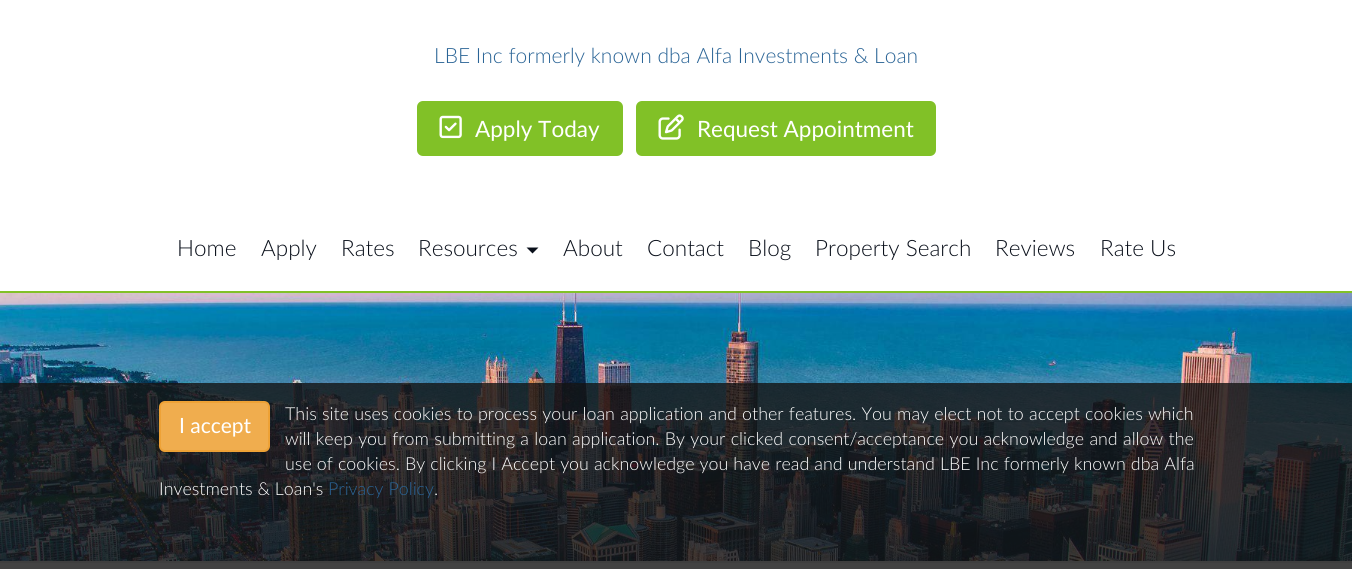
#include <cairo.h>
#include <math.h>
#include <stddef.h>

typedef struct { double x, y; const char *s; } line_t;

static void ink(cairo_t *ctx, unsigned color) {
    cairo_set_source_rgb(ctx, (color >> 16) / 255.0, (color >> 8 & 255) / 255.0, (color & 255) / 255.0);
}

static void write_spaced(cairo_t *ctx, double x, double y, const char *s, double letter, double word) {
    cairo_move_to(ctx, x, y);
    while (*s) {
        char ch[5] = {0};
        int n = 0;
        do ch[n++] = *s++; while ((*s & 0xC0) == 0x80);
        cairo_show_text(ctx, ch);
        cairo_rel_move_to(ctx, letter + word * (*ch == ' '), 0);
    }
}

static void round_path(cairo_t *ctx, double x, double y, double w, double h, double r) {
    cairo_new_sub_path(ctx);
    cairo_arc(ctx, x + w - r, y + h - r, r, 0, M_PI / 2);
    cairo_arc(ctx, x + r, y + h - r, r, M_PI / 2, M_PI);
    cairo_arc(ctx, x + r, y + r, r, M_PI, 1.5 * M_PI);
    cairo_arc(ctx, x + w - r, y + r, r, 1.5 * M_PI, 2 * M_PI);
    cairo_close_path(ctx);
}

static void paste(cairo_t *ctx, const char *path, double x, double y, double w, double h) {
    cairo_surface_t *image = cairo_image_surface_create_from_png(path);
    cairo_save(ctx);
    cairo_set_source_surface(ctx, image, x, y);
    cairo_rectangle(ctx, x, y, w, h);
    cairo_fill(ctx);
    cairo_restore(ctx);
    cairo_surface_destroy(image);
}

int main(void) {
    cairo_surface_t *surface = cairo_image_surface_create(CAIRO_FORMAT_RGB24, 1352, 569);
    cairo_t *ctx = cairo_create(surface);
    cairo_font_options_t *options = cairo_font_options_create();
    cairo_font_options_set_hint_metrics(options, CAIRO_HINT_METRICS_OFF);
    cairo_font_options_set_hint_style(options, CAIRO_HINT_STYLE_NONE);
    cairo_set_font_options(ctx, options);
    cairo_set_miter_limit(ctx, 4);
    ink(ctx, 0xFFFFFF);
    cairo_paint(ctx);
    ink(ctx, 0x81C127);
    cairo_rectangle(ctx, 0, 291, 1352, 2);
    cairo_fill(ctx);
    cairo_select_font_face(ctx, "Lato Light", CAIRO_FONT_SLANT_NORMAL, CAIRO_FONT_WEIGHT_NORMAL);
    cairo_set_font_size(ctx, 21);
    ink(ctx, 0x2A6496);
    cairo_move_to(ctx, 434, 63);
    cairo_show_text(ctx, "LBE Inc formerly known dba Alfa Investments & Loan");
    ink(ctx, 0x81C127);
    round_path(ctx, 417, 101, 206, 55, 6);
    cairo_fill(ctx);
    paste(ctx, "media/1.png", 439, 115, 23, 24);
    cairo_select_font_face(ctx, "Lato", CAIRO_FONT_SLANT_NORMAL, CAIRO_FONT_WEIGHT_NORMAL);
    cairo_set_font_size(ctx, 22.5);
    ink(ctx, 0xFFFFFF);
    cairo_move_to(ctx, 475, 137);
    cairo_show_text(ctx, "Apply Today");
    ink(ctx, 0x81C127);
    round_path(ctx, 636, 101, 300, 55, 6);
    cairo_fill(ctx);
    paste(ctx, "media/2.png", 658, 114, 26, 26);
    ink(ctx, 0xFFFFFF);
    cairo_move_to(ctx, 697, 137);
    cairo_show_text(ctx, "Request Appointment");
    cairo_select_font_face(ctx, "Lato Light", CAIRO_FONT_SLANT_NORMAL, CAIRO_FONT_WEIGHT_NORMAL);
    ink(ctx, 0x090F1A);
    {
        static const line_t items[] = {
            {177, 256, "Home"},
            {261, 256, "Apply"},
            {341, 256, "Rates"},
            {418, 256, "Resources"},
        };
        for (size_t i = 0; i < sizeof items / sizeof *items; i++) {
            cairo_move_to(ctx, items[i].x, items[i].y);
            cairo_show_text(ctx, items[i].s);
        }
    }
    cairo_new_path(ctx);
    cairo_move_to(ctx, 526.5, 247.5);
    cairo_line_to(ctx, 538.5, 247.5);
    cairo_line_to(ctx, 532.5, 253.5);
    cairo_close_path(ctx);
    cairo_fill(ctx);
    {
        static const line_t items[] = {
            {563, 256, "About"},
            {647, 256, "Contact"},
            {748, 256, "Blog"},
            {815, 256, "Property Search"},
            {995, 256, "Reviews"},
            {1100, 256, "Rate Us"},
        };
        for (size_t i = 0; i < sizeof items / sizeof *items; i++) {
            cairo_move_to(ctx, items[i].x, items[i].y);
            cairo_show_text(ctx, items[i].s);
        }
    }
    paste(ctx, "media/3.png", 0, 293, 1352, 268);
    ink(ctx, 0xEDEDED);
    cairo_rectangle(ctx, 0, 561, 1352, 2);
    cairo_fill(ctx);
    cairo_set_source_rgba(ctx, 0.078, 0.078, 0.078, 0.8);
    cairo_rectangle(ctx, 0, 383, 1352, 186);
    cairo_fill(ctx);
    ink(ctx, 0xF0AD4E);
    round_path(ctx, 160, 402, 109, 49, 5);
    cairo_fill_preserve(ctx);
    ink(ctx, 0xEEA236);
    cairo_stroke(ctx);
    cairo_select_font_face(ctx, "Lato", CAIRO_FONT_SLANT_NORMAL, CAIRO_FONT_WEIGHT_NORMAL);
    cairo_set_font_size(ctx, 21);
    ink(ctx, 0xFFFFFF);
    cairo_move_to(ctx, 179, 433);
    cairo_show_text(ctx, "I accept");
    cairo_select_font_face(ctx, "Lato Light", CAIRO_FONT_SLANT_NORMAL, CAIRO_FONT_WEIGHT_NORMAL);
    cairo_set_font_size(ctx, 17.85);
    write_spaced(ctx, 285, 420, "This site uses cookies to process your loan application and other features. You may elect not to accept cookies which", 0, 0.4);
    write_spaced(ctx, 285, 445, "will keep you from submitting a loan application. By your clicked consent/acceptance you acknowledge and allow the", 0, 0.5);
    write_spaced(ctx, 285, 470, "use of cookies. By clicking I Accept you acknowledge you have read and understand LBE Inc formerly known dba Alfa", 0, 0.25);
    cairo_move_to(ctx, 159, 495);
    cairo_show_text(ctx, "Investments & Loan's");
    ink(ctx, 0x2A6496);
    cairo_move_to(ctx, 328, 495);
    cairo_show_text(ctx, "Privacy Policy");
    ink(ctx, 0xFFFFFF);
    cairo_move_to(ctx, 434, 495);
    cairo_show_text(ctx, ".");
    cairo_surface_write_to_png(surface, "image.png");
    cairo_font_options_destroy(options);
    cairo_destroy(ctx);
    cairo_surface_destroy(surface);
    return 0;
}
